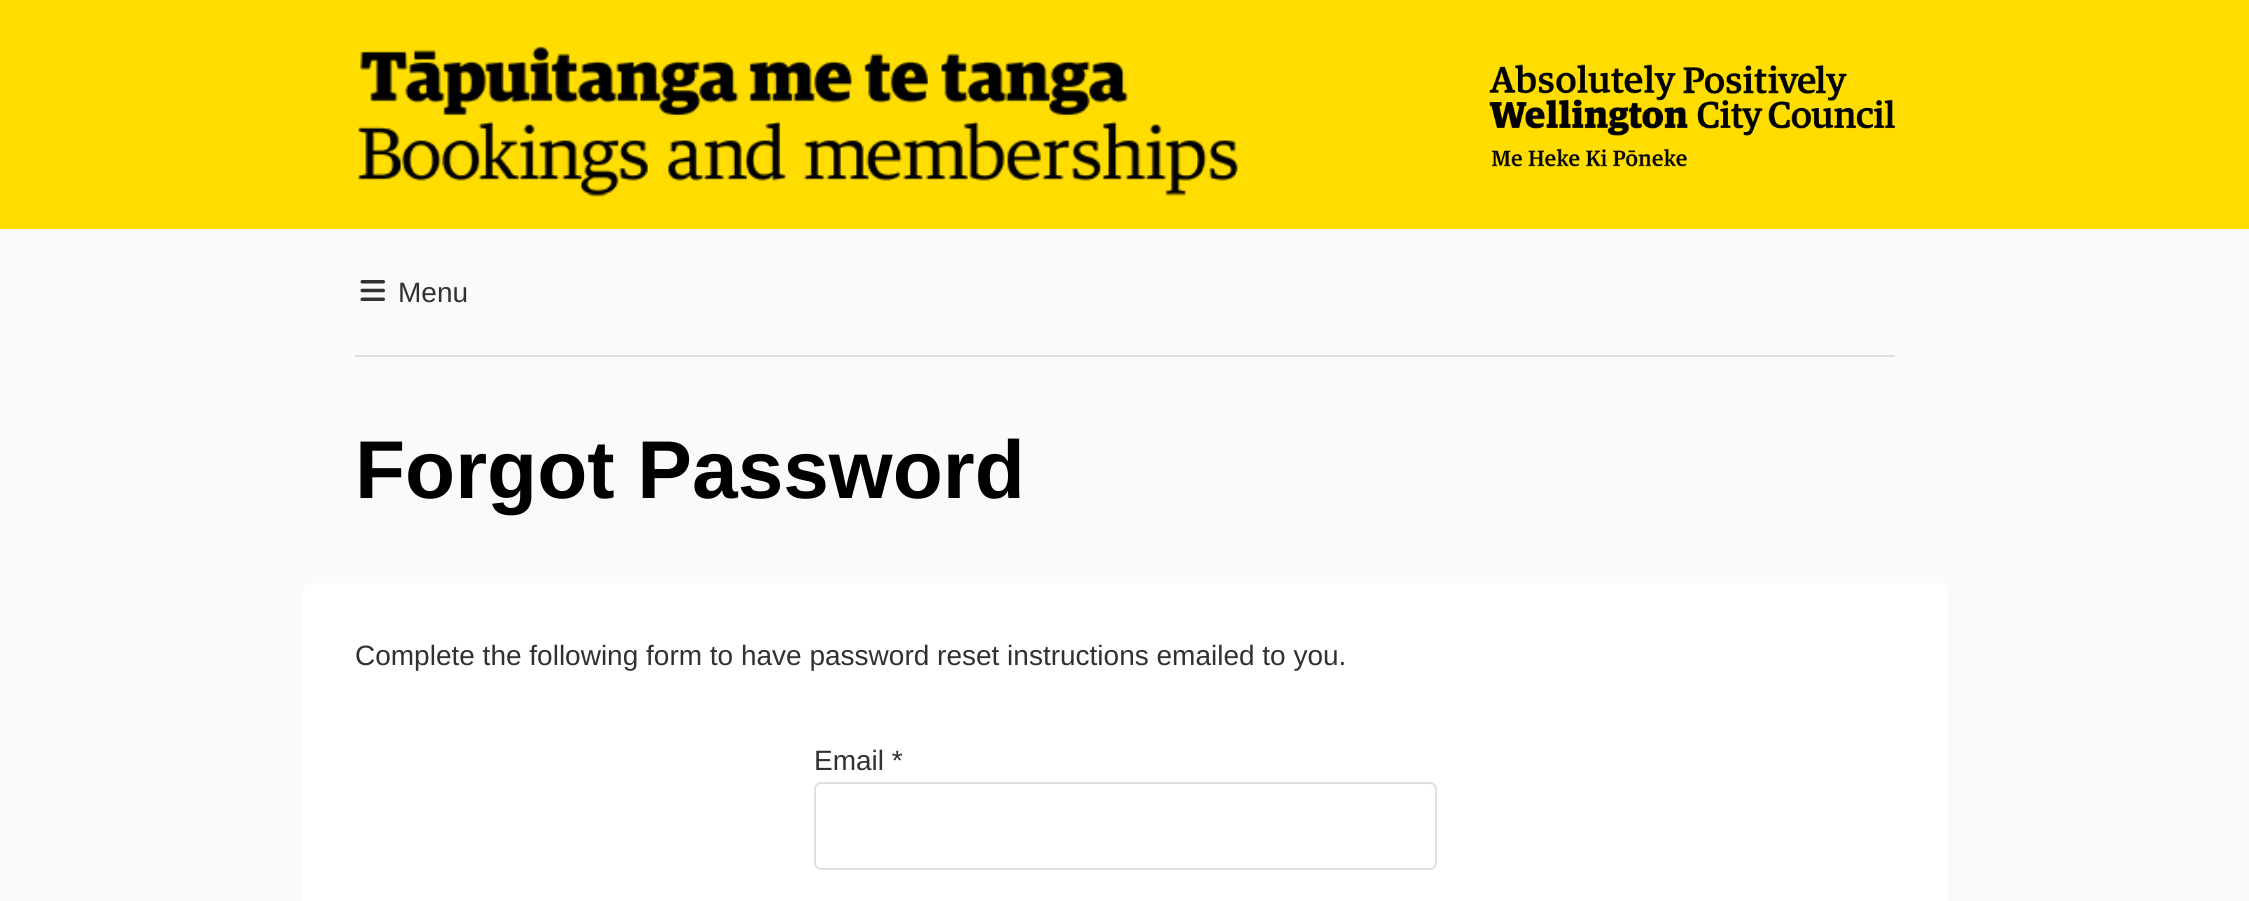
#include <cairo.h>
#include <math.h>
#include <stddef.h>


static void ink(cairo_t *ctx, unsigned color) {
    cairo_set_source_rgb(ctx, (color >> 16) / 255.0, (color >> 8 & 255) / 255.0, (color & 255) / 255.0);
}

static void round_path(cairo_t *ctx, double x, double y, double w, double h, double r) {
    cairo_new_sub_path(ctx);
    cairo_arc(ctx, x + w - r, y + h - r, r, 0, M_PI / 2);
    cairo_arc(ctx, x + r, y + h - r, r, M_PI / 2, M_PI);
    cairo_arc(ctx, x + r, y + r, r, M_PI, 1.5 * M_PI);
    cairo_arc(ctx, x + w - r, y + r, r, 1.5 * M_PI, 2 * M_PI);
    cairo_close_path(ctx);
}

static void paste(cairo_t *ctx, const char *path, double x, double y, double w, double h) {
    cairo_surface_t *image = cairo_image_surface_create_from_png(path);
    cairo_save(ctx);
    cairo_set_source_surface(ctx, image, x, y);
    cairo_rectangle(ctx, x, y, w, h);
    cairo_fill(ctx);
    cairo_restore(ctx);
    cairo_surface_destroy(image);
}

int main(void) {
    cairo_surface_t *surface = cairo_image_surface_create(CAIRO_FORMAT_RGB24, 2249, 901);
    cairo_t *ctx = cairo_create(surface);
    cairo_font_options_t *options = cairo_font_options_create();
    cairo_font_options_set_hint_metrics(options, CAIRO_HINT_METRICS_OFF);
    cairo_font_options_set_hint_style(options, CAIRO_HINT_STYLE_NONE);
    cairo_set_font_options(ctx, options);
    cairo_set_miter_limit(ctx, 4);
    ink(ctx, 0xFAFAFA);
    cairo_paint(ctx);
    ink(ctx, 0xFFDD00);
    cairo_rectangle(ctx, 0, 0, 2249, 229);
    cairo_fill(ctx);
    paste(ctx, "media/1.png", 358, 46, 880, 151);
    paste(ctx, "media/2.png", 1489, 64, 407, 103);
    ink(ctx, 0xE0E0E0);
    cairo_rectangle(ctx, 355, 355, 1540, 2);
    cairo_fill(ctx);
    paste(ctx, "media/3.png", 360, 280, 25, 21);
    cairo_select_font_face(ctx, "Liberation Sans", CAIRO_FONT_SLANT_NORMAL, CAIRO_FONT_WEIGHT_NORMAL);
    cairo_set_font_size(ctx, 28);
    ink(ctx, 0x33312E);
    cairo_move_to(ctx, 398, 302);
    cairo_show_text(ctx, "Menu");
    cairo_select_font_face(ctx, "Liberation Sans", CAIRO_FONT_SLANT_NORMAL, CAIRO_FONT_WEIGHT_BOLD);
    cairo_set_font_size(ctx, 82);
    ink(ctx, 0x000000);
    cairo_move_to(ctx, 355, 498);
    cairo_show_text(ctx, "Forgot Password");
    ink(ctx, 0xFFFFFF);
    cairo_new_path(ctx);
    cairo_move_to(ctx, 310, 583);
    cairo_line_to(ctx, 1941, 583);
    cairo_curve_to(ctx, 1945, 583, 1948, 586, 1948, 590);
    cairo_line_to(ctx, 1948, 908);
    cairo_line_to(ctx, 303, 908);
    cairo_line_to(ctx, 303, 590);
    cairo_curve_to(ctx, 303, 586, 306, 583, 310, 583);
    cairo_close_path(ctx);
    cairo_fill(ctx);
    cairo_select_font_face(ctx, "Liberation Sans", CAIRO_FONT_SLANT_NORMAL, CAIRO_FONT_WEIGHT_NORMAL);
    cairo_set_font_size(ctx, 28);
    ink(ctx, 0x33312E);
    cairo_move_to(ctx, 355, 665);
    cairo_show_text(ctx, "Complete the following form to have password reset instructions emailed to you.");
    cairo_move_to(ctx, 814, 770);
    cairo_show_text(ctx, "Email *");
    round_path(ctx, 815, 783, 621, 86, 6);
    ink(ctx, 0xE0E0E0);
    cairo_stroke(ctx);
    cairo_surface_write_to_png(surface, "image.png");
    cairo_font_options_destroy(options);
    cairo_destroy(ctx);
    cairo_surface_destroy(surface);
    return 0;
}
